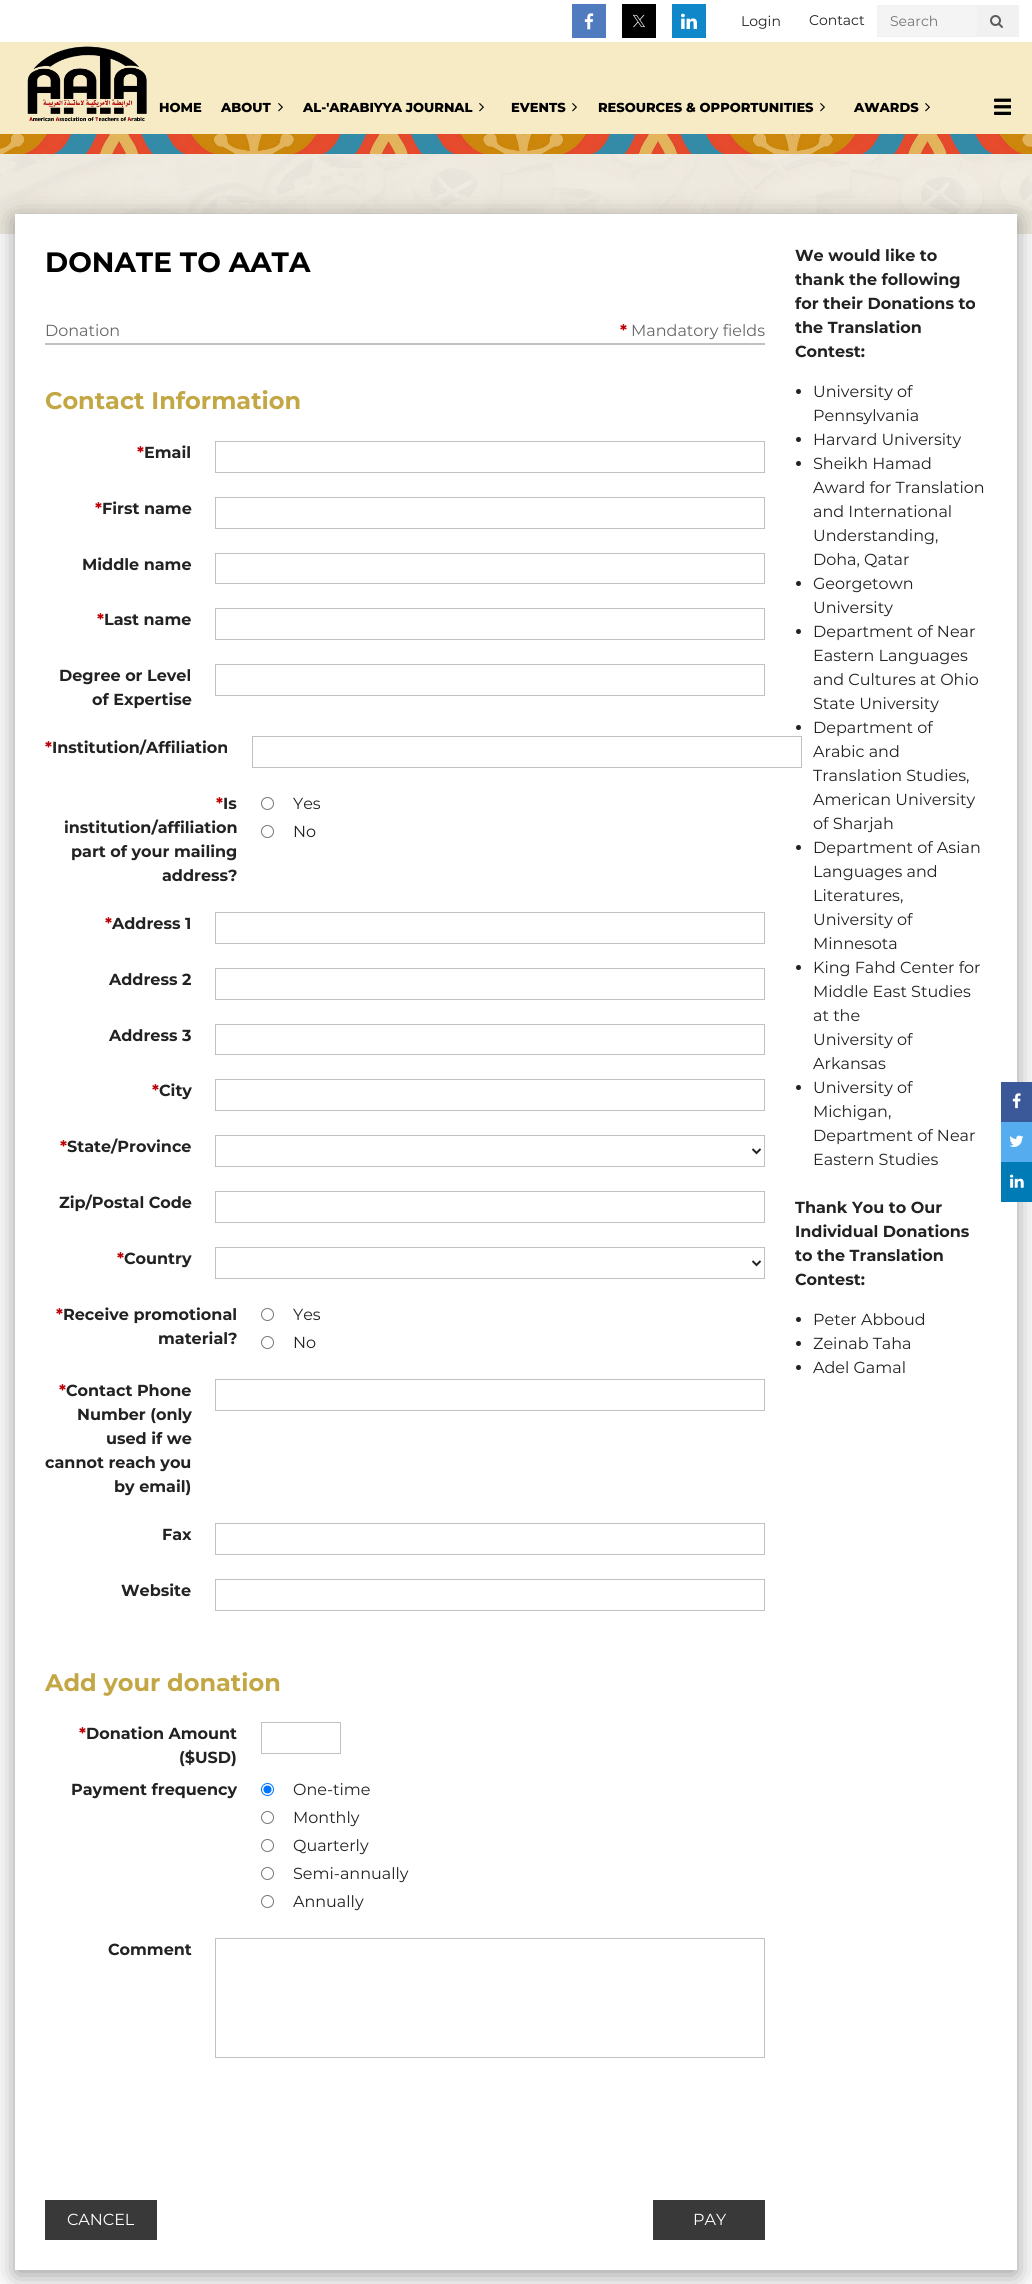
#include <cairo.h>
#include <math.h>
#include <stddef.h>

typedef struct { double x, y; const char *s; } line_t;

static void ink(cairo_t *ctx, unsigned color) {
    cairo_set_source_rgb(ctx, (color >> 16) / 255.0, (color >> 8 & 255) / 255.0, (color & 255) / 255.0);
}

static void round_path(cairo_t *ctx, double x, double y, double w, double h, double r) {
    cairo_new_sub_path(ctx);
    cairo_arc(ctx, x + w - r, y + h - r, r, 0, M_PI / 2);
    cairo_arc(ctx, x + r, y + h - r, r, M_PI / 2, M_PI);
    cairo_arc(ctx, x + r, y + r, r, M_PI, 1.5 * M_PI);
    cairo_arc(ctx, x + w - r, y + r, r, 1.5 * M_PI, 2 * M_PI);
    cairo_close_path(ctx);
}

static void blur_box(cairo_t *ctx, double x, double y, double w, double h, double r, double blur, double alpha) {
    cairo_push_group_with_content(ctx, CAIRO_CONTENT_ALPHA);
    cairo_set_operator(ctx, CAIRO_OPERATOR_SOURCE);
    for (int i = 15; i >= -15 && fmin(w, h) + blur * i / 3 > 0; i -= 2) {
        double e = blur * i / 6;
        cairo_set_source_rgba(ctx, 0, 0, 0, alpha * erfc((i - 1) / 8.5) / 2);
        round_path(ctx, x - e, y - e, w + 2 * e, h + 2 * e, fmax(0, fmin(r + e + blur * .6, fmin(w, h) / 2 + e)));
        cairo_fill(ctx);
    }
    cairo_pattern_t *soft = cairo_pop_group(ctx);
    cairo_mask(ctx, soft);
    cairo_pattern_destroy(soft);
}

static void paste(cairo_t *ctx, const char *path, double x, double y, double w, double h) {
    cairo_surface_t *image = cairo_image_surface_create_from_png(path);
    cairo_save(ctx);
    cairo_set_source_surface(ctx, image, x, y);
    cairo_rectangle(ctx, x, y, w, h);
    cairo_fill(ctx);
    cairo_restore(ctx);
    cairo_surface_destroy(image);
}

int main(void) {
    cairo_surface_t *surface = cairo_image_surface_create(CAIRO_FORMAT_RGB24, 1032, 2284);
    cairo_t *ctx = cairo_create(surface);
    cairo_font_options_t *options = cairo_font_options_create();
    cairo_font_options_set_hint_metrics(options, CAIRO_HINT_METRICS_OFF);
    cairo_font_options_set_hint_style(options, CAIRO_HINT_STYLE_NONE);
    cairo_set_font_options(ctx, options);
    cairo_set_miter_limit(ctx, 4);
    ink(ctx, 0xFFFFFF);
    cairo_paint(ctx);
    ink(ctx, 0x507BBE);
    cairo_rectangle(ctx, 572, 4, 34, 34);
    cairo_fill(ctx);
    paste(ctx, "media/1.png", 584, 13, 10, 17);
    ink(ctx, 0x000000);
    cairo_rectangle(ctx, 622, 4, 34, 34);
    cairo_fill(ctx);
    paste(ctx, "media/2.png", 633, 14, 12, 14);
    ink(ctx, 0x1087C9);
    cairo_rectangle(ctx, 672, 4, 34, 34);
    cairo_fill(ctx);
    paste(ctx, "media/3.png", 681, 13, 16, 16);
    paste(ctx, "media/11.png", 0, 154, 1032, 80);
    ink(ctx, 0x000000);
    blur_box(ctx, 15, 219, 1002, 2056, 0, 12.5, 0.4);
    ink(ctx, 0xFFFFFF);
    cairo_rectangle(ctx, 15, 214, 1002, 2056);
    cairo_fill(ctx);
    ink(ctx, 0x3B5998);
    cairo_rectangle(ctx, 1001, 1082, 31, 40);
    cairo_fill(ctx);
    paste(ctx, "media/4.png", 1012, 1093, 9, 16);
    ink(ctx, 0x55ACEE);
    cairo_rectangle(ctx, 1001, 1122, 31, 40);
    cairo_fill(ctx);
    paste(ctx, "media/5.png", 1009, 1135, 15, 12);
    ink(ctx, 0x007BB5);
    cairo_rectangle(ctx, 1001, 1162, 31, 40);
    cairo_fill(ctx);
    paste(ctx, "media/6.png", 1010, 1174, 14, 14);
    cairo_select_font_face(ctx, "Montserrat", CAIRO_FONT_SLANT_NORMAL, CAIRO_FONT_WEIGHT_NORMAL);
    cairo_set_font_size(ctx, 14);
    ink(ctx, 0x222222);
    cairo_move_to(ctx, 741, 26);
    cairo_show_text(ctx, "Login");
    cairo_move_to(ctx, 809, 25);
    cairo_show_text(ctx, "Contact");
    ink(ctx, 0xF1F1F1);
    cairo_rectangle(ctx, 877, 5, 142, 32);
    cairo_fill(ctx);
    ink(ctx, 0xF4F4F4);
    cairo_rectangle(ctx, 878, 6, 99, 30);
    cairo_fill(ctx);
    ink(ctx, 0x757575);
    cairo_move_to(ctx, 890, 26);
    cairo_show_text(ctx, "Search");
    paste(ctx, "media/7.png", 990, 15, 13, 13);
    ink(ctx, 0xF6EBC5);
    cairo_rectangle(ctx, 0, 42, 1032, 92);
    cairo_fill(ctx);
    paste(ctx, "media/8.png", 27, 46, 120, 76);
    cairo_select_font_face(ctx, "Montserrat ExtraBold", CAIRO_FONT_SLANT_NORMAL, CAIRO_FONT_WEIGHT_NORMAL);
    cairo_set_font_size(ctx, 13);
    ink(ctx, 0x000000);
    cairo_move_to(ctx, 159, 112);
    cairo_show_text(ctx, "HOME");
    cairo_move_to(ctx, 221, 112);
    cairo_show_text(ctx, "ABOUT");
    paste(ctx, "media/9.png", 278, 103, 5, 9);
    cairo_move_to(ctx, 303, 112);
    cairo_show_text(ctx, "AL-'ARABIYYA JOURNAL");
    paste(ctx, "media/9.png", 479, 103, 5, 9);
    cairo_move_to(ctx, 511, 112);
    cairo_show_text(ctx, "EVENTS");
    paste(ctx, "media/9.png", 572, 103, 5, 9);
    cairo_move_to(ctx, 598, 112);
    cairo_show_text(ctx, "RESOURCES & OPPORTUNITIES");
    paste(ctx, "media/9.png", 820, 103, 5, 9);
    cairo_move_to(ctx, 854, 112);
    cairo_show_text(ctx, "AWARDS");
    paste(ctx, "media/9.png", 925, 103, 5, 9);
    paste(ctx, "media/10.png", 994, 98, 17, 17);
    paste(ctx, "media/12.png", 0, 134, 1032, 20);
    cairo_select_font_face(ctx, "Montserrat", CAIRO_FONT_SLANT_NORMAL, CAIRO_FONT_WEIGHT_BOLD);
    cairo_set_font_size(ctx, 28);
    cairo_move_to(ctx, 45, 272);
    cairo_show_text(ctx, "DONATE TO AATA");
    ink(ctx, 0xC1C1C1);
    cairo_rectangle(ctx, 45, 343, 720, 2);
    cairo_fill(ctx);
    cairo_select_font_face(ctx, "Montserrat", CAIRO_FONT_SLANT_NORMAL, CAIRO_FONT_WEIGHT_NORMAL);
    cairo_set_font_size(ctx, 16);
    ink(ctx, 0x676767);
    cairo_move_to(ctx, 45, 336);
    cairo_show_text(ctx, "Donation");
    cairo_select_font_face(ctx, "Montserrat", CAIRO_FONT_SLANT_NORMAL, CAIRO_FONT_WEIGHT_BOLD);
    ink(ctx, 0xBE0004);
    cairo_move_to(ctx, 620, 336);
    cairo_show_text(ctx, "*");
    cairo_select_font_face(ctx, "Montserrat", CAIRO_FONT_SLANT_NORMAL, CAIRO_FONT_WEIGHT_NORMAL);
    ink(ctx, 0x676767);
    cairo_move_to(ctx, 631, 336);
    cairo_show_text(ctx, "Mandatory fields");
    cairo_select_font_face(ctx, "Montserrat", CAIRO_FONT_SLANT_NORMAL, CAIRO_FONT_WEIGHT_BOLD);
    cairo_set_font_size(ctx, 24);
    ink(ctx, 0xC3A745);
    cairo_move_to(ctx, 45, 409);
    cairo_show_text(ctx, "Contact Information");
    cairo_set_font_size(ctx, 16);
    ink(ctx, 0xBE0004);
    cairo_move_to(ctx, 137, 458);
    cairo_show_text(ctx, "*");
    ink(ctx, 0x222222);
    cairo_move_to(ctx, 144, 458);
    cairo_show_text(ctx, "Email");
    cairo_rectangle(ctx, 215.5, 441.5, 549, 31);
    ink(ctx, 0xC1C1C1);
    cairo_set_line_width(ctx, 1);
    cairo_stroke(ctx);
    ink(ctx, 0xBE0004);
    cairo_move_to(ctx, 95, 514);
    cairo_show_text(ctx, "*");
    ink(ctx, 0x222222);
    cairo_move_to(ctx, 102, 514);
    cairo_show_text(ctx, "First name");
    cairo_rectangle(ctx, 215.5, 497.5, 549, 31);
    ink(ctx, 0xC1C1C1);
    cairo_stroke(ctx);
    ink(ctx, 0x222222);
    cairo_move_to(ctx, 82, 570);
    cairo_show_text(ctx, "Middle name");
    cairo_rectangle(ctx, 215.5, 553.5, 549, 30);
    ink(ctx, 0xC1C1C1);
    cairo_stroke(ctx);
    ink(ctx, 0xBE0004);
    cairo_move_to(ctx, 97, 625);
    cairo_show_text(ctx, "*");
    ink(ctx, 0x222222);
    cairo_move_to(ctx, 104, 625);
    cairo_show_text(ctx, "Last name");
    cairo_rectangle(ctx, 215.5, 608.5, 549, 31);
    ink(ctx, 0xC1C1C1);
    cairo_stroke(ctx);
    ink(ctx, 0x222222);
    cairo_move_to(ctx, 59, 681);
    cairo_show_text(ctx, "Degree or Level");
    cairo_move_to(ctx, 92, 705);
    cairo_show_text(ctx, "of Expertise");
    cairo_rectangle(ctx, 215.5, 664.5, 549, 31);
    ink(ctx, 0xC1C1C1);
    cairo_stroke(ctx);
    ink(ctx, 0xBE0004);
    cairo_move_to(ctx, 45, 753);
    cairo_show_text(ctx, "*");
    ink(ctx, 0x222222);
    cairo_move_to(ctx, 52, 753);
    cairo_show_text(ctx, "Institution/Affiliation");
    cairo_rectangle(ctx, 252.5, 736.5, 549, 31);
    ink(ctx, 0xC1C1C1);
    cairo_stroke(ctx);
    ink(ctx, 0xBE0004);
    cairo_move_to(ctx, 216, 809);
    cairo_show_text(ctx, "*");
    ink(ctx, 0x222222);
    {
        static const line_t items[] = {
            {223, 809, "Is"},
            {64, 833, "institution/affiliation"},
            {71, 857, "part of your mailing"},
            {162, 881, "address?"},
        };
        for (size_t i = 0; i < sizeof items / sizeof *items; i++) {
            cairo_move_to(ctx, items[i].x, items[i].y);
            cairo_show_text(ctx, items[i].s);
        }
    }
    cairo_new_path(ctx);
    cairo_arc(ctx, 267.5, 803.5, 6, 0, 2 * M_PI);
    ink(ctx, 0x767676);
    cairo_stroke(ctx);
    cairo_select_font_face(ctx, "Montserrat", CAIRO_FONT_SLANT_NORMAL, CAIRO_FONT_WEIGHT_NORMAL);
    ink(ctx, 0x222222);
    cairo_move_to(ctx, 293, 809);
    cairo_show_text(ctx, "Yes");
    cairo_new_path(ctx);
    cairo_arc(ctx, 267.5, 831.5, 6, 0, 2 * M_PI);
    ink(ctx, 0x767676);
    cairo_stroke(ctx);
    ink(ctx, 0x222222);
    cairo_move_to(ctx, 293, 837);
    cairo_show_text(ctx, "No");
    cairo_select_font_face(ctx, "Montserrat", CAIRO_FONT_SLANT_NORMAL, CAIRO_FONT_WEIGHT_BOLD);
    ink(ctx, 0xBE0004);
    cairo_move_to(ctx, 105, 929);
    cairo_show_text(ctx, "*");
    ink(ctx, 0x222222);
    cairo_move_to(ctx, 112, 929);
    cairo_show_text(ctx, "Address 1");
    cairo_rectangle(ctx, 215.5, 912.5, 549, 31);
    ink(ctx, 0xC1C1C1);
    cairo_stroke(ctx);
    ink(ctx, 0x222222);
    cairo_move_to(ctx, 109, 985);
    cairo_show_text(ctx, "Address 2");
    cairo_rectangle(ctx, 215.5, 968.5, 549, 31);
    ink(ctx, 0xC1C1C1);
    cairo_stroke(ctx);
    ink(ctx, 0x222222);
    cairo_move_to(ctx, 109, 1041);
    cairo_show_text(ctx, "Address 3");
    cairo_rectangle(ctx, 215.5, 1024.5, 549, 30);
    ink(ctx, 0xC1C1C1);
    cairo_stroke(ctx);
    ink(ctx, 0xBE0004);
    cairo_move_to(ctx, 152, 1096);
    cairo_show_text(ctx, "*");
    ink(ctx, 0x222222);
    cairo_move_to(ctx, 159, 1096);
    cairo_show_text(ctx, "City");
    cairo_rectangle(ctx, 215.5, 1079.5, 549, 31);
    ink(ctx, 0xC1C1C1);
    cairo_stroke(ctx);
    ink(ctx, 0xBE0004);
    cairo_move_to(ctx, 60, 1152);
    cairo_show_text(ctx, "*");
    ink(ctx, 0x222222);
    cairo_move_to(ctx, 67, 1152);
    cairo_show_text(ctx, "State/Province");
    cairo_rectangle(ctx, 215.5, 1135.5, 549, 31);
    ink(ctx, 0xC1C1C1);
    cairo_stroke(ctx);
    cairo_new_path(ctx);
    cairo_move_to(ctx, 752.5, 1149);
    cairo_line_to(ctx, 756.5, 1153);
    cairo_line_to(ctx, 760.5, 1149);
    ink(ctx, 0x222222);
    cairo_set_line_width(ctx, 2);
    cairo_stroke(ctx);
    cairo_move_to(ctx, 59, 1208);
    cairo_show_text(ctx, "Zip/Postal Code");
    cairo_rectangle(ctx, 215.5, 1191.5, 549, 31);
    ink(ctx, 0xC1C1C1);
    cairo_set_line_width(ctx, 1);
    cairo_stroke(ctx);
    ink(ctx, 0xBE0004);
    cairo_move_to(ctx, 117, 1264);
    cairo_show_text(ctx, "*");
    ink(ctx, 0x222222);
    cairo_move_to(ctx, 124, 1264);
    cairo_show_text(ctx, "Country");
    cairo_rectangle(ctx, 215.5, 1247.5, 549, 31);
    ink(ctx, 0xC1C1C1);
    cairo_stroke(ctx);
    cairo_new_path(ctx);
    cairo_move_to(ctx, 752.5, 1261);
    cairo_line_to(ctx, 756.5, 1265);
    cairo_line_to(ctx, 760.5, 1261);
    ink(ctx, 0x222222);
    cairo_set_line_width(ctx, 2);
    cairo_stroke(ctx);
    ink(ctx, 0xBE0004);
    cairo_move_to(ctx, 56, 1320);
    cairo_show_text(ctx, "*");
    ink(ctx, 0x222222);
    cairo_move_to(ctx, 63, 1320);
    cairo_show_text(ctx, "Receive promotional");
    cairo_move_to(ctx, 158, 1344);
    cairo_show_text(ctx, "material?");
    cairo_new_path(ctx);
    cairo_arc(ctx, 267.5, 1314.5, 6, 0, 2 * M_PI);
    ink(ctx, 0x767676);
    cairo_set_line_width(ctx, 1);
    cairo_stroke(ctx);
    cairo_select_font_face(ctx, "Montserrat", CAIRO_FONT_SLANT_NORMAL, CAIRO_FONT_WEIGHT_NORMAL);
    ink(ctx, 0x222222);
    cairo_move_to(ctx, 293, 1320);
    cairo_show_text(ctx, "Yes");
    cairo_new_path(ctx);
    cairo_arc(ctx, 267.5, 1342.5, 6, 0, 2 * M_PI);
    ink(ctx, 0x767676);
    cairo_stroke(ctx);
    ink(ctx, 0x222222);
    cairo_move_to(ctx, 293, 1348);
    cairo_show_text(ctx, "No");
    cairo_select_font_face(ctx, "Montserrat", CAIRO_FONT_SLANT_NORMAL, CAIRO_FONT_WEIGHT_BOLD);
    ink(ctx, 0xBE0004);
    cairo_move_to(ctx, 59, 1396);
    cairo_show_text(ctx, "*");
    ink(ctx, 0x222222);
    {
        static const line_t items[] = {
            {66, 1396, "Contact Phone"},
            {77, 1420, "Number (only"},
            {106, 1444, "used if we"},
            {45, 1468, "cannot reach you"},
            {114, 1492, "by email)"},
        };
        for (size_t i = 0; i < sizeof items / sizeof *items; i++) {
            cairo_move_to(ctx, items[i].x, items[i].y);
            cairo_show_text(ctx, items[i].s);
        }
    }
    cairo_rectangle(ctx, 215.5, 1379.5, 549, 31);
    ink(ctx, 0xC1C1C1);
    cairo_stroke(ctx);
    ink(ctx, 0x222222);
    cairo_move_to(ctx, 162, 1540);
    cairo_show_text(ctx, "Fax");
    cairo_rectangle(ctx, 215.5, 1523.5, 549, 31);
    ink(ctx, 0xC1C1C1);
    cairo_stroke(ctx);
    ink(ctx, 0x222222);
    cairo_move_to(ctx, 121, 1596);
    cairo_show_text(ctx, "Website");
    cairo_rectangle(ctx, 215.5, 1579.5, 549, 31);
    ink(ctx, 0xC1C1C1);
    cairo_stroke(ctx);
    cairo_set_font_size(ctx, 24);
    ink(ctx, 0xC3A745);
    cairo_move_to(ctx, 45, 1691);
    cairo_show_text(ctx, "Add your donation");
    cairo_set_font_size(ctx, 16);
    ink(ctx, 0xBE0004);
    cairo_move_to(ctx, 79, 1739);
    cairo_show_text(ctx, "*");
    ink(ctx, 0x222222);
    cairo_move_to(ctx, 86, 1739);
    cairo_show_text(ctx, "Donation Amount");
    cairo_move_to(ctx, 179, 1763);
    cairo_show_text(ctx, "($USD)");
    cairo_rectangle(ctx, 261.5, 1722.5, 79, 31);
    ink(ctx, 0xC1C1C1);
    cairo_stroke(ctx);
    ink(ctx, 0x222222);
    cairo_move_to(ctx, 71, 1795);
    cairo_show_text(ctx, "Payment frequency");
    cairo_new_path(ctx);
    cairo_arc(ctx, 267.5, 1789.5, 6, 0, 2 * M_PI);
    ink(ctx, 0x0075FF);
    cairo_stroke(ctx);
    cairo_arc(ctx, 267.5, 1789.5, 4, 0, 2 * M_PI);
    cairo_fill(ctx);
    cairo_select_font_face(ctx, "Montserrat", CAIRO_FONT_SLANT_NORMAL, CAIRO_FONT_WEIGHT_NORMAL);
    ink(ctx, 0x222222);
    cairo_move_to(ctx, 293, 1795);
    cairo_show_text(ctx, "One-time");
    cairo_new_path(ctx);
    cairo_arc(ctx, 267.5, 1817.5, 6, 0, 2 * M_PI);
    ink(ctx, 0x767676);
    cairo_stroke(ctx);
    ink(ctx, 0x222222);
    cairo_move_to(ctx, 293, 1823);
    cairo_show_text(ctx, "Monthly");
    cairo_new_path(ctx);
    cairo_arc(ctx, 267.5, 1845.5, 6, 0, 2 * M_PI);
    ink(ctx, 0x767676);
    cairo_stroke(ctx);
    ink(ctx, 0x222222);
    cairo_move_to(ctx, 293, 1851);
    cairo_show_text(ctx, "Quarterly");
    cairo_new_path(ctx);
    cairo_arc(ctx, 267.5, 1873.5, 6, 0, 2 * M_PI);
    ink(ctx, 0x767676);
    cairo_stroke(ctx);
    ink(ctx, 0x222222);
    cairo_move_to(ctx, 293, 1879);
    cairo_show_text(ctx, "Semi-annually");
    cairo_new_path(ctx);
    cairo_arc(ctx, 267.5, 1901.5, 6, 0, 2 * M_PI);
    ink(ctx, 0x767676);
    cairo_stroke(ctx);
    ink(ctx, 0x222222);
    cairo_move_to(ctx, 293, 1907);
    cairo_show_text(ctx, "Annually");
    cairo_select_font_face(ctx, "Montserrat", CAIRO_FONT_SLANT_NORMAL, CAIRO_FONT_WEIGHT_BOLD);
    cairo_move_to(ctx, 108, 1955);
    cairo_show_text(ctx, "Comment");
    cairo_rectangle(ctx, 215.5, 1938.5, 549, 119);
    ink(ctx, 0xC1C1C1);
    cairo_stroke(ctx);
    ink(ctx, 0x393939);
    cairo_rectangle(ctx, 45, 2200, 112, 40);
    cairo_fill(ctx);
    cairo_select_font_face(ctx, "Montserrat", CAIRO_FONT_SLANT_NORMAL, CAIRO_FONT_WEIGHT_NORMAL);
    ink(ctx, 0xFFFFFF);
    cairo_move_to(ctx, 67, 2225);
    cairo_show_text(ctx, "CANCEL");
    ink(ctx, 0x393939);
    cairo_rectangle(ctx, 653, 2200, 112, 40);
    cairo_fill(ctx);
    ink(ctx, 0xFFFFFF);
    cairo_move_to(ctx, 693, 2225);
    cairo_show_text(ctx, "PAY");
    cairo_select_font_face(ctx, "Montserrat", CAIRO_FONT_SLANT_NORMAL, CAIRO_FONT_WEIGHT_BOLD);
    ink(ctx, 0x222222);
    {
        static const line_t items[] = {
            {795, 261, "We would like to"},
            {795, 285, "thank the following"},
            {795, 309, "for their Donations to"},
            {795, 333, "the Translation"},
            {795, 357, "Contest:"},
        };
        for (size_t i = 0; i < sizeof items / sizeof *items; i++) {
            cairo_move_to(ctx, items[i].x, items[i].y);
            cairo_show_text(ctx, items[i].s);
        }
    }
    cairo_new_path(ctx);
    cairo_arc(ctx, 798.5, 391.5, 2.5, 0, 2 * M_PI);
    cairo_fill(ctx);
    cairo_select_font_face(ctx, "Montserrat", CAIRO_FONT_SLANT_NORMAL, CAIRO_FONT_WEIGHT_NORMAL);
    cairo_move_to(ctx, 813, 397);
    cairo_show_text(ctx, "University of");
    cairo_move_to(ctx, 813, 421);
    cairo_show_text(ctx, "Pennsylvania");
    cairo_new_path(ctx);
    cairo_arc(ctx, 798.5, 439.5, 2.5, 0, 2 * M_PI);
    cairo_fill(ctx);
    cairo_move_to(ctx, 813, 445);
    cairo_show_text(ctx, "Harvard University");
    cairo_new_path(ctx);
    cairo_arc(ctx, 798.5, 463.5, 2.5, 0, 2 * M_PI);
    cairo_fill(ctx);
    {
        static const line_t items[] = {
            {813, 469, "Sheikh Hamad"},
            {813, 493, "Award for Translation"},
            {813, 517, "and International"},
            {813, 541, "Understanding,"},
            {813, 565, "Doha, Qatar"},
        };
        for (size_t i = 0; i < sizeof items / sizeof *items; i++) {
            cairo_move_to(ctx, items[i].x, items[i].y);
            cairo_show_text(ctx, items[i].s);
        }
    }
    cairo_new_path(ctx);
    cairo_arc(ctx, 798.5, 583.5, 2.5, 0, 2 * M_PI);
    cairo_fill(ctx);
    cairo_move_to(ctx, 813, 589);
    cairo_show_text(ctx, "Georgetown");
    cairo_move_to(ctx, 813, 613);
    cairo_show_text(ctx, "University");
    cairo_new_path(ctx);
    cairo_arc(ctx, 798.5, 631.5, 2.5, 0, 2 * M_PI);
    cairo_fill(ctx);
    {
        static const line_t items[] = {
            {813, 637, "Department of Near"},
            {813, 661, "Eastern Languages"},
            {813, 685, "and Cultures at Ohio"},
            {813, 709, "State University"},
        };
        for (size_t i = 0; i < sizeof items / sizeof *items; i++) {
            cairo_move_to(ctx, items[i].x, items[i].y);
            cairo_show_text(ctx, items[i].s);
        }
    }
    cairo_new_path(ctx);
    cairo_arc(ctx, 798.5, 727.5, 2.5, 0, 2 * M_PI);
    cairo_fill(ctx);
    {
        static const line_t items[] = {
            {813, 733, "Department of"},
            {813, 757, "Arabic and"},
            {813, 781, "Translation Studies,"},
            {813, 805, "American University"},
            {813, 829, "of Sharjah"},
        };
        for (size_t i = 0; i < sizeof items / sizeof *items; i++) {
            cairo_move_to(ctx, items[i].x, items[i].y);
            cairo_show_text(ctx, items[i].s);
        }
    }
    cairo_new_path(ctx);
    cairo_arc(ctx, 798.5, 847.5, 2.5, 0, 2 * M_PI);
    cairo_fill(ctx);
    {
        static const line_t items[] = {
            {813, 853, "Department of Asian"},
            {813, 877, "Languages and"},
            {813, 901, "Literatures,"},
            {813, 925, "University of"},
            {813, 949, "Minnesota"},
        };
        for (size_t i = 0; i < sizeof items / sizeof *items; i++) {
            cairo_move_to(ctx, items[i].x, items[i].y);
            cairo_show_text(ctx, items[i].s);
        }
    }
    cairo_new_path(ctx);
    cairo_arc(ctx, 798.5, 967.5, 2.5, 0, 2 * M_PI);
    cairo_fill(ctx);
    {
        static const line_t items[] = {
            {813, 973, "King Fahd Center for"},
            {813, 997, "Middle East Studies"},
            {813, 1021, "at the"},
            {813, 1045, "University of"},
            {813, 1069, "Arkansas"},
        };
        for (size_t i = 0; i < sizeof items / sizeof *items; i++) {
            cairo_move_to(ctx, items[i].x, items[i].y);
            cairo_show_text(ctx, items[i].s);
        }
    }
    cairo_new_path(ctx);
    cairo_arc(ctx, 798.5, 1087.5, 2.5, 0, 2 * M_PI);
    cairo_fill(ctx);
    {
        static const line_t items[] = {
            {813, 1093, "University of"},
            {813, 1117, "Michigan,"},
            {813, 1141, "Department of Near"},
            {813, 1165, "Eastern Studies"},
        };
        for (size_t i = 0; i < sizeof items / sizeof *items; i++) {
            cairo_move_to(ctx, items[i].x, items[i].y);
            cairo_show_text(ctx, items[i].s);
        }
    }
    cairo_select_font_face(ctx, "Montserrat", CAIRO_FONT_SLANT_NORMAL, CAIRO_FONT_WEIGHT_BOLD);
    {
        static const line_t items[] = {
            {795, 1213, "Thank You to Our"},
            {795, 1237, "Individual Donations"},
            {795, 1261, "to the Translation"},
            {795, 1285, "Contest:"},
        };
        for (size_t i = 0; i < sizeof items / sizeof *items; i++) {
            cairo_move_to(ctx, items[i].x, items[i].y);
            cairo_show_text(ctx, items[i].s);
        }
    }
    cairo_new_path(ctx);
    cairo_arc(ctx, 798.5, 1319.5, 2.5, 0, 2 * M_PI);
    cairo_fill(ctx);
    cairo_select_font_face(ctx, "Montserrat", CAIRO_FONT_SLANT_NORMAL, CAIRO_FONT_WEIGHT_NORMAL);
    cairo_move_to(ctx, 813, 1325);
    cairo_show_text(ctx, "Peter Abboud");
    cairo_new_path(ctx);
    cairo_arc(ctx, 798.5, 1343.5, 2.5, 0, 2 * M_PI);
    cairo_fill(ctx);
    cairo_move_to(ctx, 813, 1349);
    cairo_show_text(ctx, "Zeinab Taha");
    cairo_new_path(ctx);
    cairo_arc(ctx, 798.5, 1367.5, 2.5, 0, 2 * M_PI);
    cairo_fill(ctx);
    cairo_move_to(ctx, 813, 1373);
    cairo_show_text(ctx, "Adel Gamal");
    cairo_surface_write_to_png(surface, "image.png");
    cairo_font_options_destroy(options);
    cairo_destroy(ctx);
    cairo_surface_destroy(surface);
    return 0;
}
